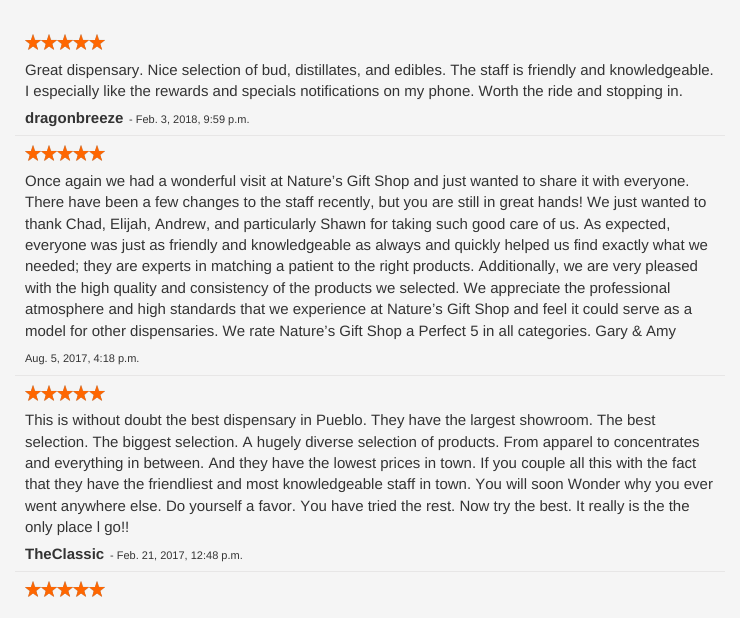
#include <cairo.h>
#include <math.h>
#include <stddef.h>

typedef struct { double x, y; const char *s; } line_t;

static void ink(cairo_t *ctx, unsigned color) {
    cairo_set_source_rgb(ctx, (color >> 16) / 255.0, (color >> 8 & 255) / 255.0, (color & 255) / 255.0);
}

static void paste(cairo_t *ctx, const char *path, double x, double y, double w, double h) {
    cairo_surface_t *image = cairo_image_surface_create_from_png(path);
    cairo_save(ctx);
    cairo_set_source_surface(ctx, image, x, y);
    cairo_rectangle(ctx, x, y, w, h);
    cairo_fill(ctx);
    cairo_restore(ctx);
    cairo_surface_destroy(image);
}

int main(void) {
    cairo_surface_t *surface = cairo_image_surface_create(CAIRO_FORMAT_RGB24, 740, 618);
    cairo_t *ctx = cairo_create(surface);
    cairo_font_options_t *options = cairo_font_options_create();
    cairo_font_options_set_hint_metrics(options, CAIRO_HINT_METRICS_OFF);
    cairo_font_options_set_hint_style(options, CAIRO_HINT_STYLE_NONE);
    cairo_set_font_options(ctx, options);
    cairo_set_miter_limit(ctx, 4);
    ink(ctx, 0xF5F5F5);
    cairo_paint(ctx);
    paste(ctx, "media/1.png", 25, 34, 80, 16);
    paste(ctx, "media/2.png", 25, 34, 80, 16);
    cairo_select_font_face(ctx, "Liberation Sans", CAIRO_FONT_SLANT_NORMAL, CAIRO_FONT_WEIGHT_NORMAL);
    cairo_set_font_size(ctx, 15);
    ink(ctx, 0x333333);
    cairo_move_to(ctx, 25, 75);
    cairo_show_text(ctx, "Great dispensary. Nice selection of bud, distillates, and edibles. The staff is friendly and knowledgeable.");
    cairo_move_to(ctx, 25, 96);
    cairo_show_text(ctx, "I especially like the rewards and specials notifications on my phone. Worth the ride and stopping in.");
    cairo_select_font_face(ctx, "Liberation Sans", CAIRO_FONT_SLANT_NORMAL, CAIRO_FONT_WEIGHT_BOLD);
    cairo_move_to(ctx, 25, 123);
    cairo_show_text(ctx, "dragonbreeze");
    cairo_select_font_face(ctx, "Liberation Sans", CAIRO_FONT_SLANT_NORMAL, CAIRO_FONT_WEIGHT_NORMAL);
    cairo_set_font_size(ctx, 11);
    cairo_move_to(ctx, 129, 123);
    cairo_show_text(ctx, "- Feb. 3, 2018, 9:59 p.m.");
    ink(ctx, 0xE7E6E6);
    cairo_rectangle(ctx, 15, 135, 710, 1);
    cairo_fill(ctx);
    paste(ctx, "media/1.png", 25, 145, 80, 16);
    paste(ctx, "media/2.png", 25, 145, 80, 16);
    cairo_set_font_size(ctx, 15);
    ink(ctx, 0x333333);
    {
        static const line_t items[] = {
            {25, 186, "Once again we had a wonderful visit at Nature’s Gift Shop and just wanted to share it with everyone."},
            {25, 207, "There have been a few changes to the staff recently, but you are still in great hands! We just wanted to"},
            {25, 229, "thank Chad, Elijah, Andrew, and particularly Shawn for taking such good care of us. As expected,"},
            {25, 250, "everyone was just as friendly and knowledgeable as always and quickly helped us find exactly what we"},
            {25, 271, "needed; they are experts in matching a patient to the right products. Additionally, we are very pleased"},
            {25, 293, "with the high quality and consistency of the products we selected. We appreciate the professional"},
            {25, 314, "atmosphere and high standards that we experience at Nature’s Gift Shop and feel it could serve as a"},
            {25, 336, "model for other dispensaries. We rate Nature’s Gift Shop a Perfect 5 in all categories. Gary & Amy"},
        };
        for (size_t i = 0; i < sizeof items / sizeof *items; i++) {
            cairo_move_to(ctx, items[i].x, items[i].y);
            cairo_show_text(ctx, items[i].s);
        }
    }
    cairo_set_font_size(ctx, 11);
    cairo_move_to(ctx, 25, 362);
    cairo_show_text(ctx, "Aug. 5, 2017, 4:18 p.m.");
    ink(ctx, 0xE7E6E6);
    cairo_rectangle(ctx, 15, 375, 710, 1);
    cairo_fill(ctx);
    paste(ctx, "media/1.png", 25, 385, 80, 16);
    paste(ctx, "media/2.png", 25, 385, 80, 16);
    cairo_set_font_size(ctx, 15);
    ink(ctx, 0x333333);
    {
        static const line_t items[] = {
            {25, 425, "This is without doubt the best dispensary in Pueblo. They have the largest showroom. The best"},
            {25, 447, "selection. The biggest selection. A hugely diverse selection of products. From apparel to concentrates"},
            {25, 468, "and everything in between. And they have the lowest prices in town. If you couple all this with the fact"},
            {25, 489, "that they have the friendliest and most knowledgeable staff in town. You will soon Wonder why you ever"},
            {25, 511, "went anywhere else. Do yourself a favor. You have tried the rest. Now try the best. It really is the the"},
            {25, 532, "only place l go!!"},
        };
        for (size_t i = 0; i < sizeof items / sizeof *items; i++) {
            cairo_move_to(ctx, items[i].x, items[i].y);
            cairo_show_text(ctx, items[i].s);
        }
    }
    cairo_select_font_face(ctx, "Liberation Sans", CAIRO_FONT_SLANT_NORMAL, CAIRO_FONT_WEIGHT_BOLD);
    cairo_move_to(ctx, 25, 559);
    cairo_show_text(ctx, "TheClassic");
    cairo_select_font_face(ctx, "Liberation Sans", CAIRO_FONT_SLANT_NORMAL, CAIRO_FONT_WEIGHT_NORMAL);
    cairo_set_font_size(ctx, 11);
    cairo_move_to(ctx, 110, 559);
    cairo_show_text(ctx, "- Feb. 21, 2017, 12:48 p.m.");
    ink(ctx, 0xE7E6E6);
    cairo_rectangle(ctx, 15, 571, 710, 1);
    cairo_fill(ctx);
    paste(ctx, "media/1.png", 25, 581, 80, 16);
    paste(ctx, "media/2.png", 25, 581, 80, 16);
    cairo_surface_write_to_png(surface, "image.png");
    cairo_font_options_destroy(options);
    cairo_destroy(ctx);
    cairo_surface_destroy(surface);
    return 0;
}
